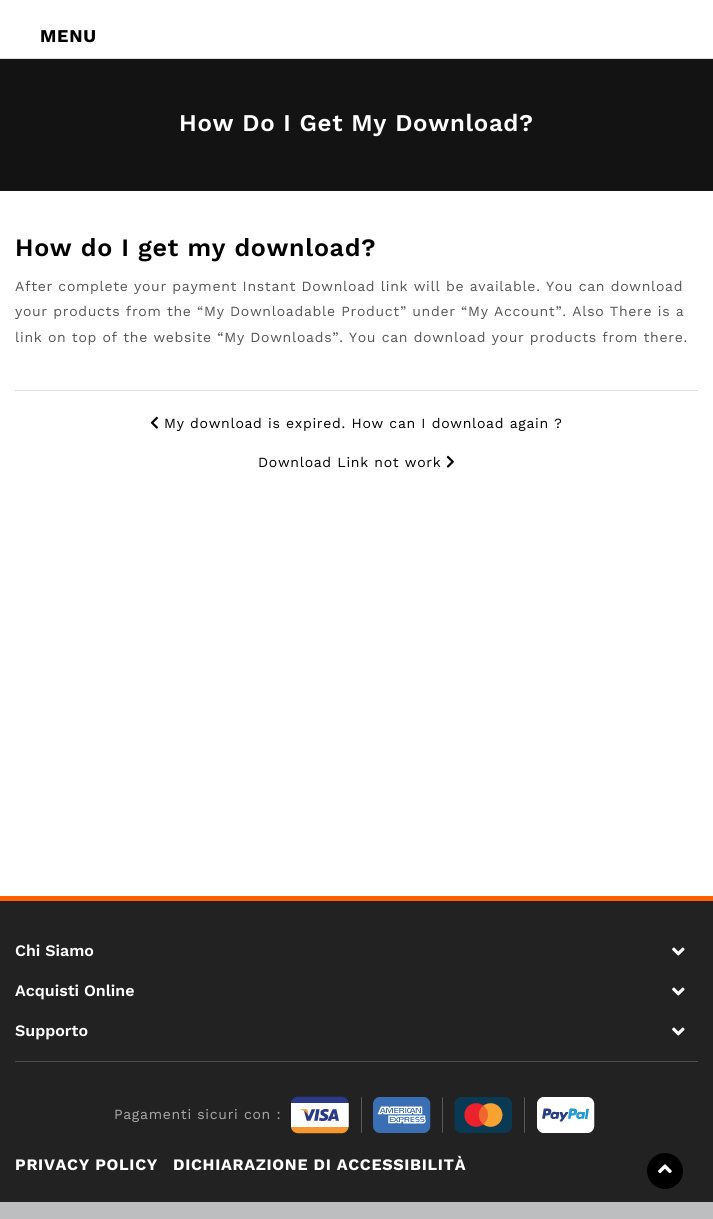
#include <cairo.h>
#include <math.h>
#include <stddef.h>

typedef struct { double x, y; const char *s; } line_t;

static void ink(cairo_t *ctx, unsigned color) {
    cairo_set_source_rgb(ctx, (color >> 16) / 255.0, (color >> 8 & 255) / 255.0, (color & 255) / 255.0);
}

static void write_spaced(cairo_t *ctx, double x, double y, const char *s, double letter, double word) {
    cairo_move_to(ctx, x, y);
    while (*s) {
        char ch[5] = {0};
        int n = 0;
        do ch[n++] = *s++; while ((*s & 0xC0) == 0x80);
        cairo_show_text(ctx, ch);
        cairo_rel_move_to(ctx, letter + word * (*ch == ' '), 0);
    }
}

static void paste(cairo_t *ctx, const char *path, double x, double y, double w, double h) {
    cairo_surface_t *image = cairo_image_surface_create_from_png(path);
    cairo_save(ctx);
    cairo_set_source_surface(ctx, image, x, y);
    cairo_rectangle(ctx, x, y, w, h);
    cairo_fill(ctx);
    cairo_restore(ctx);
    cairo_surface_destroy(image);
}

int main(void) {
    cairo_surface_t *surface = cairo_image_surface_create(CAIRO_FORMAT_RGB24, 713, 1219);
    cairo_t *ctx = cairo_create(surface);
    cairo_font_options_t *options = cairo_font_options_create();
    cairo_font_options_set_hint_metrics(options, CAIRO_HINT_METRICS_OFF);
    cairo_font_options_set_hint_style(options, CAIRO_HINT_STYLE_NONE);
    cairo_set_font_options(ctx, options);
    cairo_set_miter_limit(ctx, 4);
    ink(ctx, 0xFFFFFF);
    cairo_paint(ctx);
    ink(ctx, 0xE0E0E0);
    cairo_rectangle(ctx, 0, 58, 713, 1);
    cairo_fill(ctx);
    cairo_select_font_face(ctx, "Work Sans", CAIRO_FONT_SLANT_NORMAL, CAIRO_FONT_WEIGHT_BOLD);
    cairo_set_font_size(ctx, 18);
    ink(ctx, 0x000000);
    write_spaced(ctx, 40, 42, "MENU", 0.7, 0);
    ink(ctx, 0x131313);
    cairo_rectangle(ctx, 0, 59, 713, 132);
    cairo_fill(ctx);
    cairo_select_font_face(ctx, "Work Sans SemiBold", CAIRO_FONT_SLANT_NORMAL, CAIRO_FONT_WEIGHT_NORMAL);
    cairo_set_font_size(ctx, 24);
    ink(ctx, 0xFFFFFF);
    write_spaced(ctx, 179, 131, "How Do I Get My Download?", 0.7, 0);
    cairo_set_font_size(ctx, 25);
    ink(ctx, 0x000000);
    write_spaced(ctx, 15, 256, "How do I get my download?", 0.7, 0);
    cairo_select_font_face(ctx, "Work Sans", CAIRO_FONT_SLANT_NORMAL, CAIRO_FONT_WEIGHT_NORMAL);
    cairo_set_font_size(ctx, 14);
    ink(ctx, 0x555555);
    {
        static const line_t items[] = {
            {15, 291, "After complete your payment Instant Download link will be available. You can download"},
            {15, 316, "your products from the “My Downloadable Product” under “My Account”. Also There is a"},
            {15, 342, "link on top of the website “My Downloads”. You can download your products from there."},
        };
        for (size_t i = 0; i < sizeof items / sizeof *items; i++) {
            write_spaced(ctx, items[i].x, items[i].y, items[i].s, 0.7, 0);
        }
    }
    ink(ctx, 0xE1E1E1);
    cairo_rectangle(ctx, 15, 390, 683, 1);
    cairo_fill(ctx);
    paste(ctx, "media/1.png", 150, 416, 8, 13);
    ink(ctx, 0x000000);
    write_spaced(ctx, 164, 428, "My download is expired. How can I download again ?", 0.7, 0);
    write_spaced(ctx, 258, 467, "Download Link not work", 0.7, 0);
    paste(ctx, "media/2.png", 446, 455, 8, 13);
    ink(ctx, 0x222222);
    cairo_rectangle(ctx, 0, 901, 713, 301);
    cairo_fill(ctx);
    ink(ctx, 0xFF6100);
    cairo_rectangle(ctx, 0, 896, 713, 5);
    cairo_fill(ctx);
    cairo_select_font_face(ctx, "Work Sans SemiBold", CAIRO_FONT_SLANT_NORMAL, CAIRO_FONT_WEIGHT_NORMAL);
    cairo_set_font_size(ctx, 16);
    ink(ctx, 0xFFFFFF);
    cairo_move_to(ctx, 15, 956);
    cairo_show_text(ctx, "Chi Siamo");
    paste(ctx, "media/3.png", 672, 947, 13, 9);
    cairo_move_to(ctx, 15, 996);
    cairo_show_text(ctx, "Acquisti Online");
    paste(ctx, "media/3.png", 672, 987, 13, 9);
    cairo_move_to(ctx, 15, 1036);
    cairo_show_text(ctx, "Supporto");
    paste(ctx, "media/3.png", 672, 1027, 13, 9);
    ink(ctx, 0x4D4D4D);
    cairo_rectangle(ctx, 15, 1061, 683, 1);
    cairo_fill(ctx);
    cairo_select_font_face(ctx, "Work Sans", CAIRO_FONT_SLANT_NORMAL, CAIRO_FONT_WEIGHT_NORMAL);
    cairo_set_font_size(ctx, 14);
    ink(ctx, 0xAAAAAA);
    write_spaced(ctx, 114, 1119, "Pagamenti sicuri con :", 0.7, 0);
    paste(ctx, "media/4.png", 291, 1096, 304, 38);
    cairo_select_font_face(ctx, "Work Sans", CAIRO_FONT_SLANT_NORMAL, CAIRO_FONT_WEIGHT_BOLD);
    cairo_set_font_size(ctx, 16);
    ink(ctx, 0xFFFFFF);
    write_spaced(ctx, 15, 1170, "PRIVACY POLICY", 0.7, 0);
    write_spaced(ctx, 173, 1170, "DICHIARAZIONE DI ACCESSIBILITÀ", 0.7, 0);
    ink(ctx, 0xBCBEC0);
    cairo_rectangle(ctx, 0, 1202, 713, 17);
    cairo_fill(ctx);
    ink(ctx, 0x000000);
    cairo_arc(ctx, 665, 1171, 17, 0, 2 * M_PI);
    cairo_fill_preserve(ctx);
    cairo_stroke(ctx);
    paste(ctx, "media/5.png", 658, 1164, 14, 10);
    cairo_surface_write_to_png(surface, "image.png");
    cairo_font_options_destroy(options);
    cairo_destroy(ctx);
    cairo_surface_destroy(surface);
    return 0;
}
